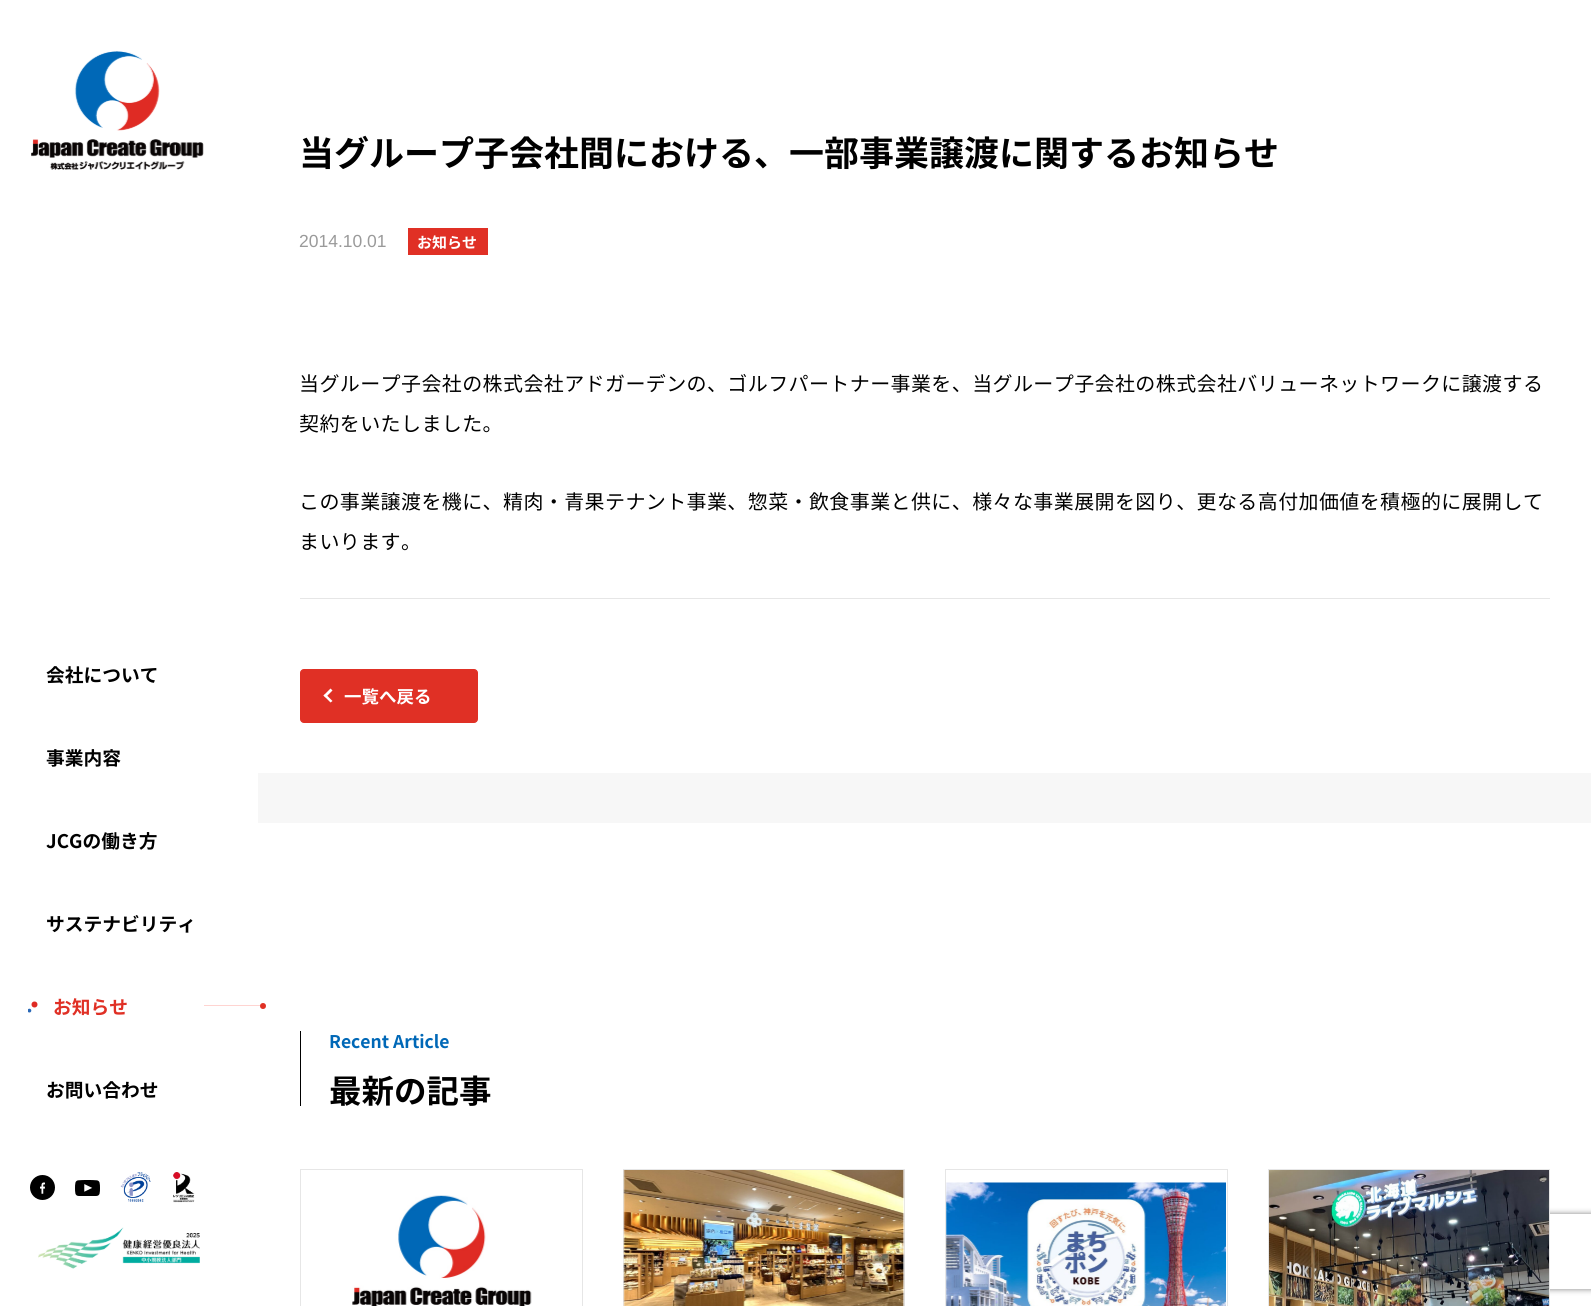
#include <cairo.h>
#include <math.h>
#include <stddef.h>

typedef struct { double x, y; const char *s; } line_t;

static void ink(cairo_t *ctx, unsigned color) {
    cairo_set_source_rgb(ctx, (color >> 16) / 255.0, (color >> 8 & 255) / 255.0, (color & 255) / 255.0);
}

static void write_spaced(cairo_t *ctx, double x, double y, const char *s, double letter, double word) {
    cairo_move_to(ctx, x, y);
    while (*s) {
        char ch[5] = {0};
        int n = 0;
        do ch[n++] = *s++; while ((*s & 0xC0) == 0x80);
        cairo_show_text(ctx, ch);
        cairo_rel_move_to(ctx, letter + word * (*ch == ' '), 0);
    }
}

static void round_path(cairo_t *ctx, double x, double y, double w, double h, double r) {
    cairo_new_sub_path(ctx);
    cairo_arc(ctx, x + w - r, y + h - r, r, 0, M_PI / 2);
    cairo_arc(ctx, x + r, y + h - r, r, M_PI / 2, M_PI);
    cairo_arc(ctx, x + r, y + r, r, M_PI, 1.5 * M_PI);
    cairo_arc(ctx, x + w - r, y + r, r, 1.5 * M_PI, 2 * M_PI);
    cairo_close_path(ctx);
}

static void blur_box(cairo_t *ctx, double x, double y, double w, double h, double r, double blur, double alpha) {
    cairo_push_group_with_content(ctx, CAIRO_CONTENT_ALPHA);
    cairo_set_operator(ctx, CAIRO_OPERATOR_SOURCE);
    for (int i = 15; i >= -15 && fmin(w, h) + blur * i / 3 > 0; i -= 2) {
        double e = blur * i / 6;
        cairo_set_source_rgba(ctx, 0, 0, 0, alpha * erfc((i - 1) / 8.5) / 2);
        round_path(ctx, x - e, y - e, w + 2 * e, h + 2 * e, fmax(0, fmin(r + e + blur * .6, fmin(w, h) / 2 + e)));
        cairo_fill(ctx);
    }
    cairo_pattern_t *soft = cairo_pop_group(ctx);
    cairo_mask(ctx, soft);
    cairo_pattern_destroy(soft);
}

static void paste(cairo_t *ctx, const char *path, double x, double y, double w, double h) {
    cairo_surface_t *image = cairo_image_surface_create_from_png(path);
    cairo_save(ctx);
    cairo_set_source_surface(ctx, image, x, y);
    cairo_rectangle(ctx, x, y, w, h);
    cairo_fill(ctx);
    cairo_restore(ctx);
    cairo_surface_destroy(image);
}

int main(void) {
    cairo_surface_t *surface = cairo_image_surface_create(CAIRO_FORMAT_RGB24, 1591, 1306);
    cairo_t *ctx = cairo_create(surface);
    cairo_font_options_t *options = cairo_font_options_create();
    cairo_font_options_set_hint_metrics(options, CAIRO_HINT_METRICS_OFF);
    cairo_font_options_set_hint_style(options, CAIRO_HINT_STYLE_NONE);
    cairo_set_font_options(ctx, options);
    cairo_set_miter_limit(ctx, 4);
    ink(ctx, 0xFFFFFF);
    cairo_paint(ctx);
    paste(ctx, "media/1.png", 31, 51, 173, 119);
    cairo_select_font_face(ctx, "Noto Sans JP", CAIRO_FONT_SLANT_NORMAL, CAIRO_FONT_WEIGHT_BOLD);
    cairo_set_font_size(ctx, 18.75);
    ink(ctx, 0x000000);
    {
        static const line_t items[] = {
            {46, 682, "会社について"},
            {46, 765, "事業内容"},
            {46, 848, "JCGの働き方"},
            {46, 931, "サステナビリティ"},
        };
        for (size_t i = 0; i < sizeof items / sizeof *items; i++) {
            cairo_move_to(ctx, items[i].x, items[i].y);
            cairo_show_text(ctx, items[i].s);
        }
    }
    ink(ctx, 0xDF2B24);
    cairo_new_path(ctx);
    cairo_arc(ctx, 34.5, 1004.5, 3, 0, 2 * M_PI);
    cairo_fill(ctx);
    cairo_save(ctx);
    cairo_rectangle(ctx, 28, 1001, 10, 12);
    cairo_clip(ctx);
    ink(ctx, 0x2968B7);
    cairo_arc(ctx, 29.4, 1010.6, 1.9, 0, 2 * M_PI);
    cairo_fill(ctx);
    cairo_restore(ctx);
    ink(ctx, 0xE03025);
    cairo_move_to(ctx, 53, 1014);
    cairo_show_text(ctx, "お知らせ");
    ink(ctx, 0xFFD4D1);
    cairo_rectangle(ctx, 204, 1005, 60, 1);
    cairo_fill(ctx);
    ink(ctx, 0xE03025);
    cairo_arc(ctx, 263, 1006, 3, 0, 2 * M_PI);
    cairo_fill(ctx);
    ink(ctx, 0x000000);
    cairo_move_to(ctx, 46, 1097);
    cairo_show_text(ctx, "お問い合わせ");
    paste(ctx, "media/2.png", 30, 1175, 25, 25);
    paste(ctx, "media/3.png", 75, 1180, 25, 16);
    paste(ctx, "media/4.png", 120, 1172, 31, 30);
    paste(ctx, "media/5.png", 173, 1172, 22, 31);
    paste(ctx, "media/6.png", 38, 1227, 162, 42);
    ink(ctx, 0xF7F7F7);
    cairo_rectangle(ctx, 258, 773, 1333, 50);
    cairo_fill(ctx);
    cairo_set_font_size(ctx, 35);
    ink(ctx, 0x000000);
    cairo_move_to(ctx, 299, 166);
    cairo_show_text(ctx, "当グループ子会社間における、一部事業譲渡に関するお知らせ");
    cairo_select_font_face(ctx, "Liberation Sans", CAIRO_FONT_SLANT_NORMAL, CAIRO_FONT_WEIGHT_NORMAL);
    cairo_set_font_size(ctx, 17.5);
    ink(ctx, 0x9A9A9A);
    cairo_move_to(ctx, 299, 247);
    cairo_show_text(ctx, "2014.10.01");
    ink(ctx, 0xE03025);
    cairo_rectangle(ctx, 408, 228, 80, 27);
    cairo_fill(ctx);
    cairo_select_font_face(ctx, "Noto Sans JP", CAIRO_FONT_SLANT_NORMAL, CAIRO_FONT_WEIGHT_BOLD);
    cairo_set_font_size(ctx, 15);
    ink(ctx, 0xFFFFFF);
    cairo_move_to(ctx, 417, 248);
    cairo_show_text(ctx, "お知らせ");
    cairo_select_font_face(ctx, "Noto Sans JP", CAIRO_FONT_SLANT_NORMAL, CAIRO_FONT_WEIGHT_NORMAL);
    cairo_set_font_size(ctx, 20);
    ink(ctx, 0x000000);
    {
        static const line_t items[] = {
            {299, 391, "当グループ子会社の株式会社アドガーデンの、ゴルフパートナー事業を、当グループ子会社の株式会社バリューネットワークに譲渡する"},
            {299, 431, "契約をいたしました。"},
            {299, 509, "この事業譲渡を機に、精肉・青果テナント事業、惣菜・飲食事業と供に、様々な事業展開を図り、更なる高付加価値を積極的に展開して"},
            {299, 549, "まいります。"},
        };
        for (size_t i = 0; i < sizeof items / sizeof *items; i++) {
            write_spaced(ctx, items[i].x, items[i].y, items[i].s, 0.4, 0);
        }
    }
    ink(ctx, 0xE6E6E6);
    cairo_rectangle(ctx, 300, 598, 1250, 1);
    cairo_fill(ctx);
    ink(ctx, 0xE03025);
    round_path(ctx, 300.5, 669.5, 177, 53, 3.5);
    cairo_fill_preserve(ctx);
    cairo_set_line_width(ctx, 1);
    cairo_stroke(ctx);
    ink(ctx, 0xFFFFFF);
    cairo_new_path(ctx);
    cairo_move_to(ctx, 330.5, 702.5);
    cairo_line_to(ctx, 323.5, 695.5);
    cairo_line_to(ctx, 325.5, 694);
    cairo_line_to(ctx, 332.5, 701);
    cairo_close_path(ctx);
    cairo_fill(ctx);
    cairo_new_path(ctx);
    cairo_move_to(ctx, 325.5, 697.5);
    cairo_line_to(ctx, 323.5, 695.5);
    cairo_line_to(ctx, 330.5, 688.5);
    cairo_line_to(ctx, 332.5, 690.5);
    cairo_close_path(ctx);
    cairo_fill(ctx);
    cairo_select_font_face(ctx, "Noto Sans JP", CAIRO_FONT_SLANT_NORMAL, CAIRO_FONT_WEIGHT_BOLD);
    cairo_set_font_size(ctx, 17.5);
    cairo_move_to(ctx, 344, 703);
    cairo_show_text(ctx, "一覧へ戻る");
    ink(ctx, 0x000000);
    cairo_rectangle(ctx, 300, 1031, 1, 75);
    cairo_fill(ctx);
    ink(ctx, 0x0068B7);
    cairo_move_to(ctx, 329, 1048);
    cairo_show_text(ctx, "Recent Article");
    cairo_set_font_size(ctx, 32.5);
    ink(ctx, 0x000000);
    cairo_move_to(ctx, 329, 1103);
    cairo_show_text(ctx, "最新の記事");
    cairo_rectangle(ctx, 300.5, 1169.5, 282, 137);
    ink(ctx, 0xE6E6E6);
    cairo_stroke(ctx);
    paste(ctx, "media/7.png", 352, 1195, 180, 111);
    cairo_rectangle(ctx, 623.5, 1169.5, 281, 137);
    cairo_stroke(ctx);
    paste(ctx, "media/8.png", 623, 1170, 282, 136);
    cairo_rectangle(ctx, 945.5, 1169.5, 282, 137);
    cairo_stroke(ctx);
    paste(ctx, "media/9.png", 946, 1182, 280, 124);
    cairo_save(ctx);
    cairo_set_fill_rule(ctx, CAIRO_FILL_RULE_EVEN_ODD);
    cairo_new_path(ctx);
    cairo_move_to(ctx, 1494, 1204);
    cairo_line_to(ctx, 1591, 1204);
    cairo_line_to(ctx, 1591, 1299);
    cairo_line_to(ctx, 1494, 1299);
    cairo_close_path(ctx);
    cairo_move_to(ctx, 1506.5, 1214);
    cairo_line_to(ctx, 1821.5, 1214);
    cairo_curve_to(ctx, 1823, 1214, 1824, 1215, 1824, 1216.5);
    cairo_line_to(ctx, 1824, 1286.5);
    cairo_curve_to(ctx, 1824, 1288, 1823, 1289, 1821.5, 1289);
    cairo_line_to(ctx, 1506.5, 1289);
    cairo_curve_to(ctx, 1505, 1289, 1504, 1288, 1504, 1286.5);
    cairo_line_to(ctx, 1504, 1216.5);
    cairo_curve_to(ctx, 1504, 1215, 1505, 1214, 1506.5, 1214);
    cairo_close_path(ctx);
    cairo_clip(ctx);
    ink(ctx, 0x808080);
    blur_box(ctx, 1504, 1214, 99, 75, 2.5, 3, 1);
    cairo_restore(ctx);
    cairo_rectangle(ctx, 1268.5, 1169.5, 281, 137);
    cairo_stroke(ctx);
    paste(ctx, "media/10.png", 1269, 1170, 280, 136);
    cairo_surface_write_to_png(surface, "image.png");
    cairo_font_options_destroy(options);
    cairo_destroy(ctx);
    cairo_surface_destroy(surface);
    return 0;
}
